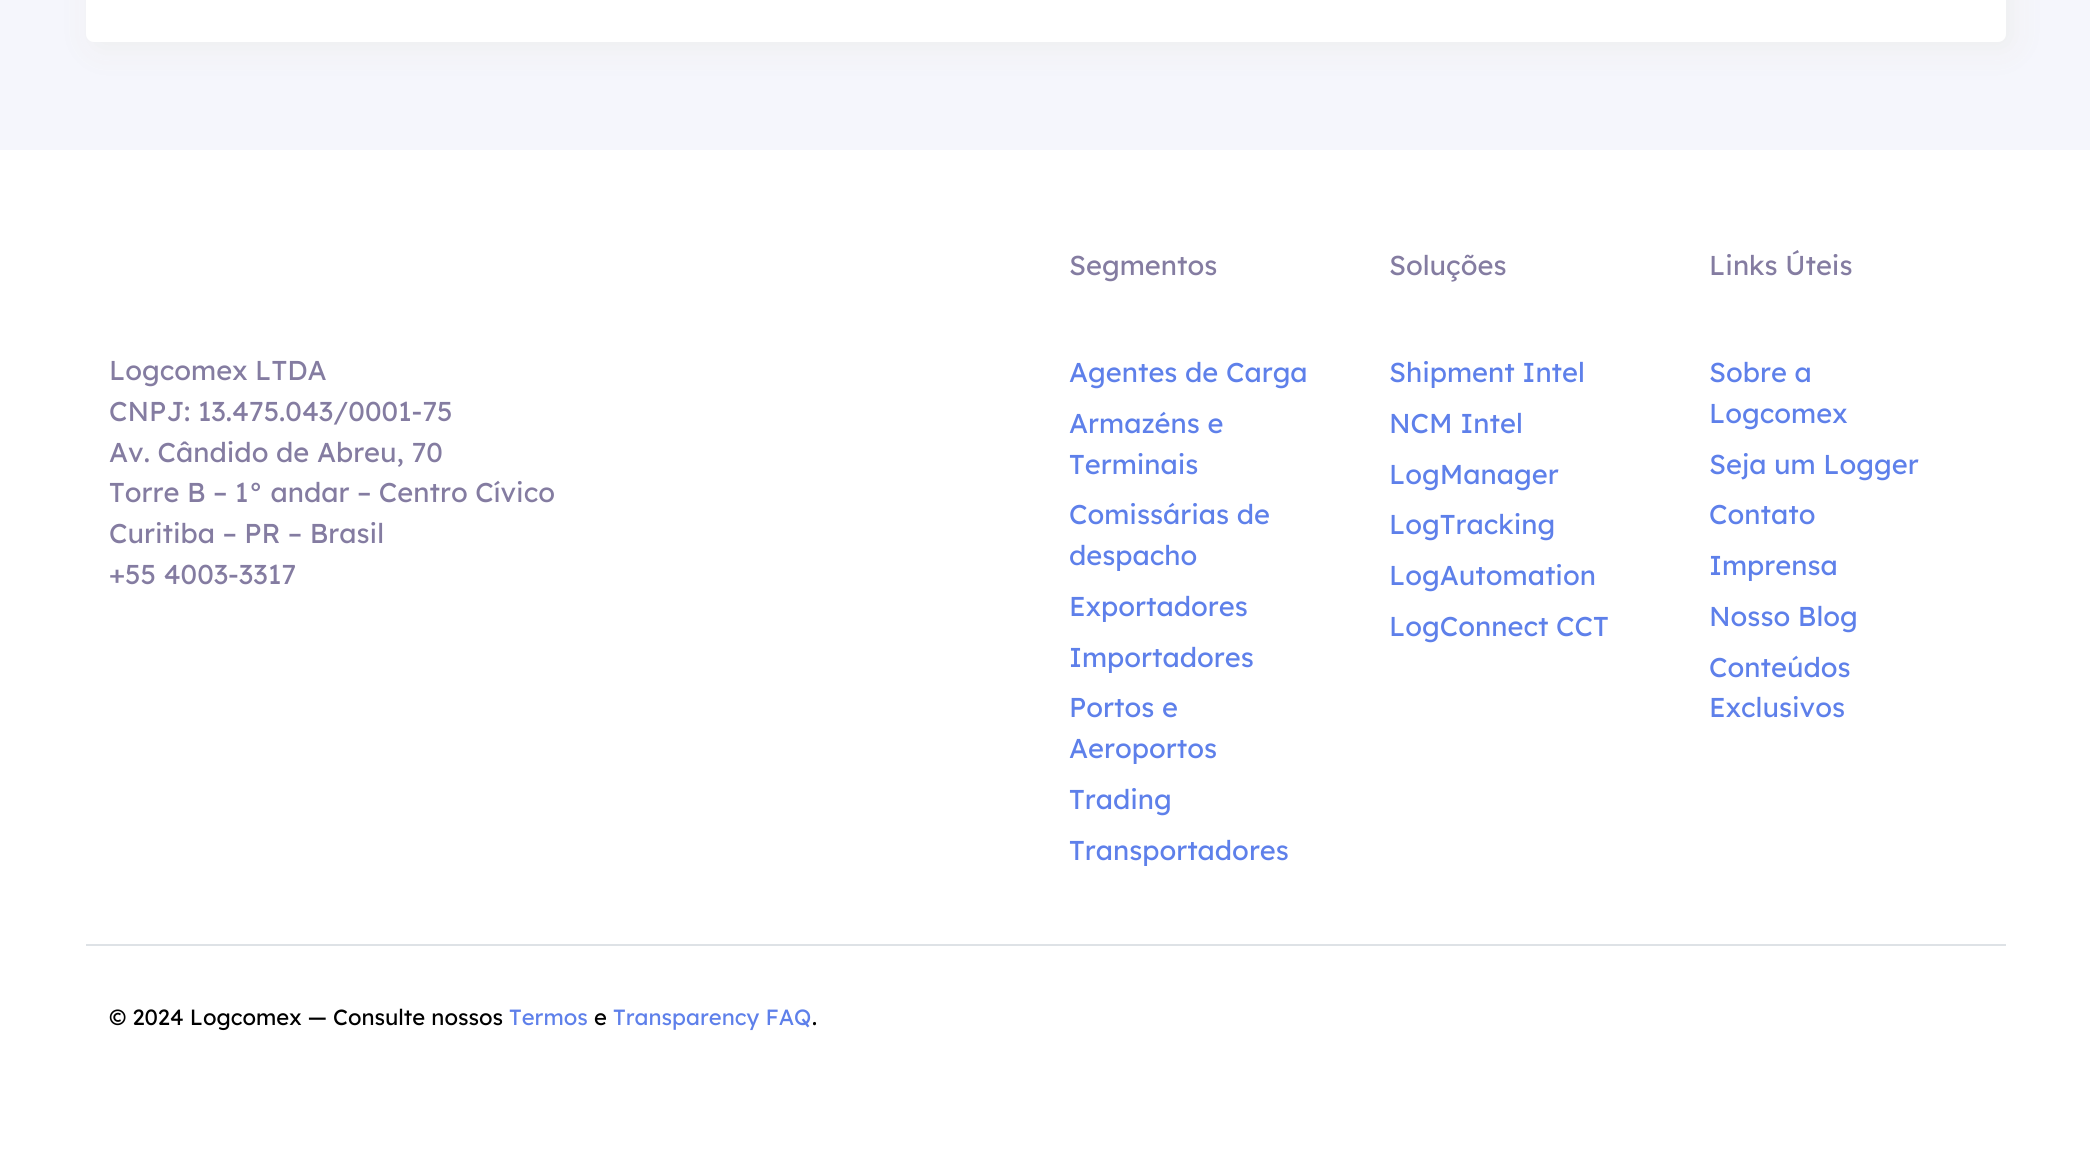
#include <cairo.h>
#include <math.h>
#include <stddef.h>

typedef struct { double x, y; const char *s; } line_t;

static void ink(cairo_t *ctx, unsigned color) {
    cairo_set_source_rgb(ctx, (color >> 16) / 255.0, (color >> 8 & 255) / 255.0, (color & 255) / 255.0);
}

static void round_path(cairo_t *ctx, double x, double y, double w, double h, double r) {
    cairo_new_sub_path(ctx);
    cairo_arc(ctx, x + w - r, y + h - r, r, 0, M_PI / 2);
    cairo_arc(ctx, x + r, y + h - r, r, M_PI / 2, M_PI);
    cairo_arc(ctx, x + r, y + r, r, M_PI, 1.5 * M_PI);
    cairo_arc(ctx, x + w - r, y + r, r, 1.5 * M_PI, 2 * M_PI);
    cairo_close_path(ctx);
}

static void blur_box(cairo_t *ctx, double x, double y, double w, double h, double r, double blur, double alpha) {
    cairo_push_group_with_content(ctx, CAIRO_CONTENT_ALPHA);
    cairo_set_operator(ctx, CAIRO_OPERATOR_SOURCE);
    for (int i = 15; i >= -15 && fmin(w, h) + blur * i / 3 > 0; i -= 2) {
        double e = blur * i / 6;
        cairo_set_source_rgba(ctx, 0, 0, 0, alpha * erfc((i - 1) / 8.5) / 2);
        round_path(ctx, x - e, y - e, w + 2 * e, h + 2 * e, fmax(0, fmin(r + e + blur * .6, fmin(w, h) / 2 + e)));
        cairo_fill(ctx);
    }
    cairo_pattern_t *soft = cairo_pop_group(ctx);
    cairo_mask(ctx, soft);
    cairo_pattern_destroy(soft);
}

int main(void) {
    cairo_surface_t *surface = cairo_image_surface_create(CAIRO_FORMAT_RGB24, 2090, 1170);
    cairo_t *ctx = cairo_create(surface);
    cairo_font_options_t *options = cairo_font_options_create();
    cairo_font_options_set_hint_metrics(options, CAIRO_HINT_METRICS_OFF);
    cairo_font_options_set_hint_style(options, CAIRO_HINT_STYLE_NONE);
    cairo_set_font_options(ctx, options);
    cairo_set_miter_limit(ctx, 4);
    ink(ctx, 0xFFFFFF);
    cairo_paint(ctx);
    ink(ctx, 0xF5F6FC);
    cairo_rectangle(ctx, 0, 0, 2090, 150);
    cairo_fill(ctx);
    ink(ctx, 0xEEEEEE);
    blur_box(ctx, 92, -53, 1920, 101, 8, 15, 1);
    ink(ctx, 0xFFFFFF);
    round_path(ctx, 86, -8, 1920, 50, 8);
    cairo_fill(ctx);
    cairo_select_font_face(ctx, "Lexend Deca", CAIRO_FONT_SLANT_NORMAL, CAIRO_FONT_WEIGHT_NORMAL);
    cairo_set_font_size(ctx, 27.25);
    ink(ctx, 0x847CA1);
    {
        static const line_t items[] = {
            {109, 380, "Logcomex LTDA"},
            {109, 421, "CNPJ: 13.475.043/0001-75"},
            {109, 462, "Av. Cândido de Abreu, 70"},
            {109, 502, "Torre B – 1° andar – Centro Cívico"},
            {109, 543, "Curitiba – PR – Brasil"},
            {109, 584, "+55 4003-3317"},
            {1069, 275, "Segmentos"},
        };
        for (size_t i = 0; i < sizeof items / sizeof *items; i++) {
            cairo_move_to(ctx, items[i].x, items[i].y);
            cairo_show_text(ctx, items[i].s);
        }
    }
    ink(ctx, 0x5E80EA);
    {
        static const line_t items[] = {
            {1069, 382, "Agentes de Carga"},
            {1069, 433, "Armazéns e"},
            {1069, 474, "Terminais"},
            {1069, 524, "Comissárias de"},
            {1069, 565, "despacho"},
            {1069, 616, "Exportadores"},
            {1069, 667, "Importadores"},
            {1069, 717, "Portos e"},
            {1069, 758, "Aeroportos"},
            {1069, 809, "Trading"},
            {1069, 860, "Transportadores"},
        };
        for (size_t i = 0; i < sizeof items / sizeof *items; i++) {
            cairo_move_to(ctx, items[i].x, items[i].y);
            cairo_show_text(ctx, items[i].s);
        }
    }
    ink(ctx, 0x847CA1);
    cairo_move_to(ctx, 1389, 275);
    cairo_show_text(ctx, "Soluções");
    ink(ctx, 0x5E80EA);
    {
        static const line_t items[] = {
            {1389, 382, "Shipment Intel"},
            {1389, 433, "NCM Intel"},
            {1389, 484, "LogManager"},
            {1389, 534, "LogTracking"},
            {1389, 585, "LogAutomation"},
            {1389, 636, "LogConnect CCT"},
        };
        for (size_t i = 0; i < sizeof items / sizeof *items; i++) {
            cairo_move_to(ctx, items[i].x, items[i].y);
            cairo_show_text(ctx, items[i].s);
        }
    }
    ink(ctx, 0x847CA1);
    cairo_move_to(ctx, 1709, 275);
    cairo_show_text(ctx, "Links Úteis");
    ink(ctx, 0x5E80EA);
    {
        static const line_t items[] = {
            {1709, 382, "Sobre a"},
            {1709, 423, "Logcomex"},
            {1709, 474, "Seja um Logger"},
            {1709, 524, "Contato"},
            {1709, 575, "Imprensa"},
            {1709, 626, "Nosso Blog"},
            {1709, 677, "Conteúdos"},
            {1709, 717, "Exclusivos"},
        };
        for (size_t i = 0; i < sizeof items / sizeof *items; i++) {
            cairo_move_to(ctx, items[i].x, items[i].y);
            cairo_show_text(ctx, items[i].s);
        }
    }
    ink(ctx, 0xDEE2E6);
    cairo_rectangle(ctx, 86, 944, 1920, 2);
    cairo_fill(ctx);
    cairo_set_font_size(ctx, 22);
    ink(ctx, 0x000000);
    cairo_move_to(ctx, 109, 1025);
    cairo_show_text(ctx, "© 2024 Logcomex — Consulte nossos");
    ink(ctx, 0x5E80EA);
    cairo_move_to(ctx, 509, 1025);
    cairo_show_text(ctx, "Termos");
    ink(ctx, 0x000000);
    cairo_move_to(ctx, 594, 1025);
    cairo_show_text(ctx, "e");
    ink(ctx, 0x5E80EA);
    cairo_move_to(ctx, 613, 1025);
    cairo_show_text(ctx, "Transparency FAQ");
    ink(ctx, 0x000000);
    cairo_move_to(ctx, 812, 1025);
    cairo_show_text(ctx, ".");
    cairo_surface_write_to_png(surface, "image.png");
    cairo_font_options_destroy(options);
    cairo_destroy(ctx);
    cairo_surface_destroy(surface);
    return 0;
}
